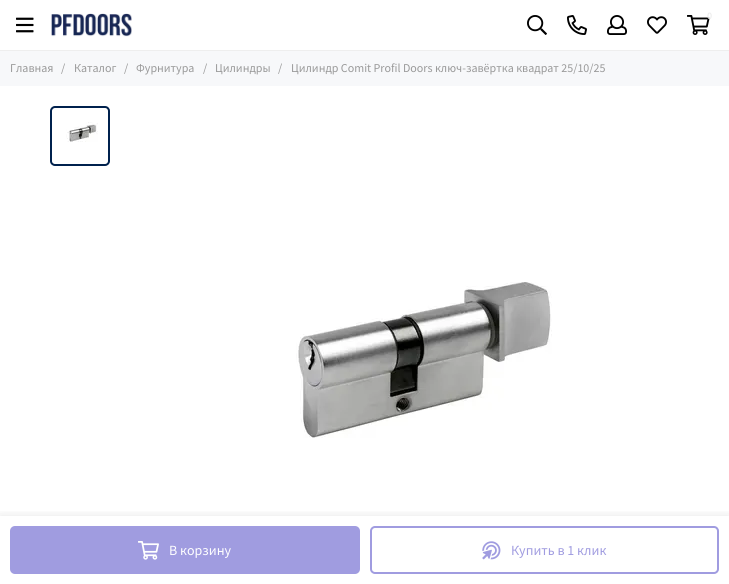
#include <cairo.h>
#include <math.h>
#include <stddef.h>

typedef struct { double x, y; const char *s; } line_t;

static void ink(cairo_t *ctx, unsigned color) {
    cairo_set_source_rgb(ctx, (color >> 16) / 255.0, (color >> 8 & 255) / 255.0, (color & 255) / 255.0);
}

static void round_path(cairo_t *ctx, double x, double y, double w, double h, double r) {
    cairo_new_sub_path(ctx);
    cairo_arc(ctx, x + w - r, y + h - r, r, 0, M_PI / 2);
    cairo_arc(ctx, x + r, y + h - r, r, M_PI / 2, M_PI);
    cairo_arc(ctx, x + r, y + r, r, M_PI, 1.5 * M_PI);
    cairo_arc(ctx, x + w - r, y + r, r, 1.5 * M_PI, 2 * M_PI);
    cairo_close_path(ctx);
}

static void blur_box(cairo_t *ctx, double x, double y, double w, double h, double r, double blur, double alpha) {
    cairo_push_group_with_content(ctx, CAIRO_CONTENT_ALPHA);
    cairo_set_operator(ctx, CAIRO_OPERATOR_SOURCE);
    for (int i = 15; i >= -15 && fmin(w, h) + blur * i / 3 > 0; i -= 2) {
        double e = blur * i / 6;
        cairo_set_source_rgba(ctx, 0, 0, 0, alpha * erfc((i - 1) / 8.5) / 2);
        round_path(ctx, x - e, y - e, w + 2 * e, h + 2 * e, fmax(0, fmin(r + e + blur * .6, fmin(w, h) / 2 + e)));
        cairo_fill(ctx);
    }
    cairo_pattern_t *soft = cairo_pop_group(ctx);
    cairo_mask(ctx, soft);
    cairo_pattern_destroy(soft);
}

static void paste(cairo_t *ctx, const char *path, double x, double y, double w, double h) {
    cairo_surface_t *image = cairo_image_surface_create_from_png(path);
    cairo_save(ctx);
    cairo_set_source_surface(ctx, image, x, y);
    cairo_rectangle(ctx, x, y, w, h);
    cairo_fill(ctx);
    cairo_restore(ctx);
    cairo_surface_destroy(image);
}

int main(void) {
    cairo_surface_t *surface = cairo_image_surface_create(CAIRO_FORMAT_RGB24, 729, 584);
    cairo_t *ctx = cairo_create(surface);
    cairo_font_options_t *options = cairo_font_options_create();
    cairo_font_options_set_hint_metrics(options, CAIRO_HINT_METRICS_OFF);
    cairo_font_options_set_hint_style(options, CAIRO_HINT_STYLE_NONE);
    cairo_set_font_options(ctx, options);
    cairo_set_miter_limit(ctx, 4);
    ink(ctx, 0xFFFFFF);
    cairo_paint(ctx);
    ink(ctx, 0xEEEEEE);
    cairo_rectangle(ctx, 0, 50, 729, 1);
    cairo_fill(ctx);
    paste(ctx, "media/1.png", 16, 17, 18, 16);
    paste(ctx, "media/2.png", 51, 13, 81, 24);
    paste(ctx, "media/3.png", 527, 15, 20, 20);
    paste(ctx, "media/4.png", 567, 15, 20, 20);
    paste(ctx, "media/5.png", 607, 15, 20, 20);
    paste(ctx, "media/6.png", 647, 16, 20, 18);
    paste(ctx, "media/7.png", 687, 15, 23, 20);
    cairo_select_font_face(ctx, "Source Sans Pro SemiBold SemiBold", CAIRO_FONT_SLANT_NORMAL, CAIRO_FONT_WEIGHT_NORMAL);
    cairo_set_font_size(ctx, 10);
    ink(ctx, 0xECECEC);
    cairo_move_to(ctx, 707, 19);
    cairo_show_text(ctx, "0");
    ink(ctx, 0xF7F8FA);
    cairo_rectangle(ctx, 0, 51, 729, 35);
    cairo_fill(ctx);
    cairo_select_font_face(ctx, "Source Sans Pro", CAIRO_FONT_SLANT_NORMAL, CAIRO_FONT_WEIGHT_NORMAL);
    cairo_set_font_size(ctx, 12);
    ink(ctx, 0x999999);
    {
        static const line_t items[] = {
            {10, 72, "Главная"},
            {61, 72, "/"},
            {74, 72, "Каталог"},
            {124, 72, "/"},
            {136, 72, "Фурнитура"},
            {203, 72, "/"},
            {215, 72, "Цилиндры"},
            {278, 72, "/"},
            {291, 72, "Цилиндр Comit Profil Doors ключ-завёртка квадрат 25/10/25"},
        };
        for (size_t i = 0; i < sizeof items / sizeof *items; i++) {
            cairo_move_to(ctx, items[i].x, items[i].y);
            cairo_show_text(ctx, items[i].s);
        }
    }
    paste(ctx, "media/8.png", 66, 122, 32, 20);
    round_path(ctx, 51, 107, 58, 58, 4);
    ink(ctx, 0x00214D);
    cairo_stroke(ctx);
    paste(ctx, "media/9.png", 296, 282, 256, 156);
    cairo_save(ctx);
    cairo_rectangle(ctx, 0, 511, 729, 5);
    cairo_clip(ctx);
    ink(ctx, 0x000000);
    blur_box(ctx, 0, 521, 729, 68, 0, 7.5, 0.2);
    cairo_restore(ctx);
    ink(ctx, 0xA09CE0);
    round_path(ctx, 10, 526, 350, 48, 5);
    cairo_fill(ctx);
    paste(ctx, "media/10.png", 138, 541, 21, 19);
    cairo_set_font_size(ctx, 14);
    ink(ctx, 0xFFFFFF);
    cairo_move_to(ctx, 169, 555);
    cairo_show_text(ctx, "В корзину");
    round_path(ctx, 371, 527, 347, 46, 4);
    ink(ctx, 0xA09CE0);
    cairo_stroke(ctx);
    paste(ctx, "media/11.png", 482, 541, 19, 19);
    cairo_move_to(ctx, 511, 555);
    cairo_show_text(ctx, "Купить в 1 клик");
    cairo_surface_write_to_png(surface, "image.png");
    cairo_font_options_destroy(options);
    cairo_destroy(ctx);
    cairo_surface_destroy(surface);
    return 0;
}
